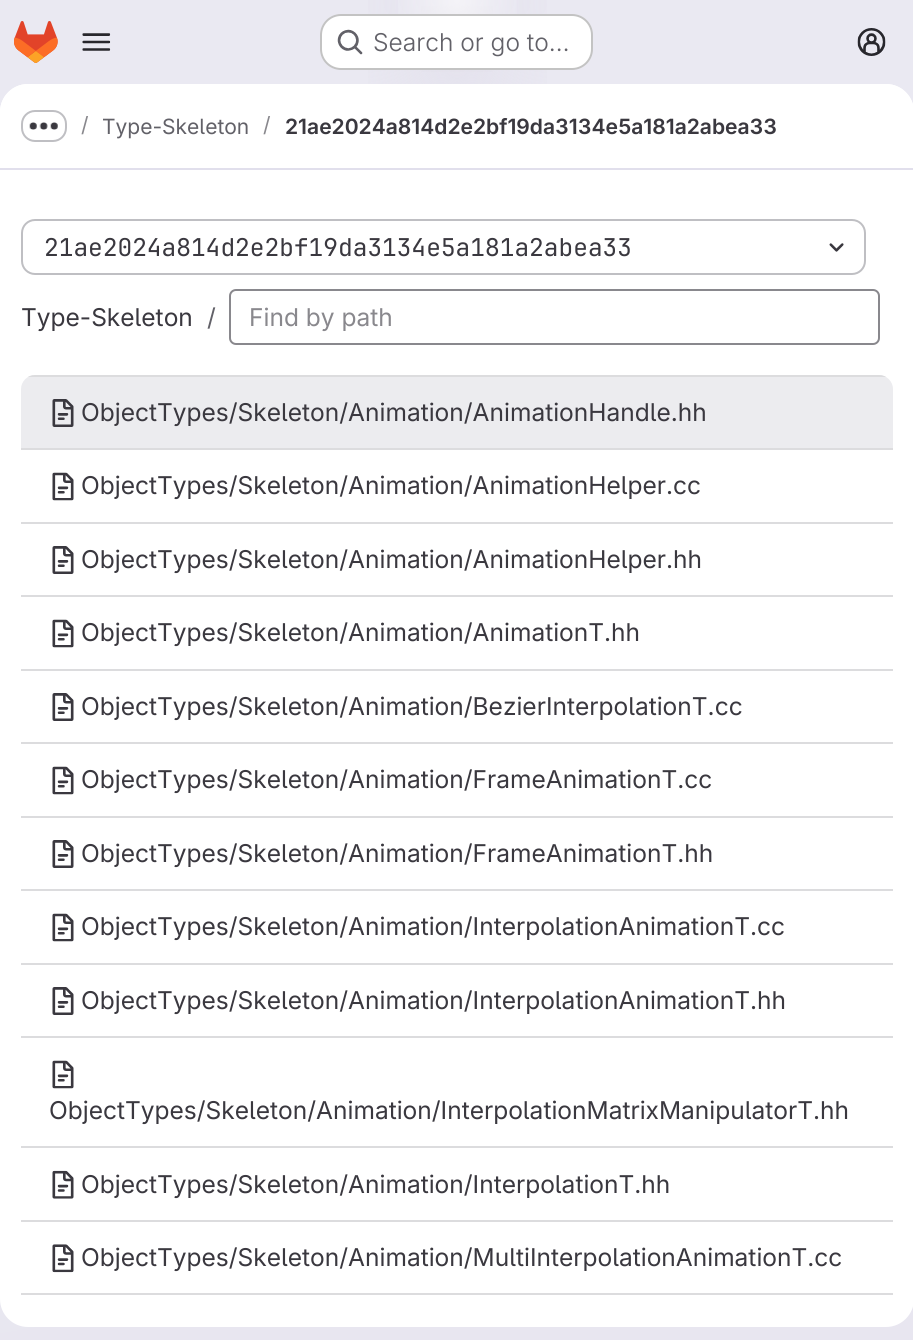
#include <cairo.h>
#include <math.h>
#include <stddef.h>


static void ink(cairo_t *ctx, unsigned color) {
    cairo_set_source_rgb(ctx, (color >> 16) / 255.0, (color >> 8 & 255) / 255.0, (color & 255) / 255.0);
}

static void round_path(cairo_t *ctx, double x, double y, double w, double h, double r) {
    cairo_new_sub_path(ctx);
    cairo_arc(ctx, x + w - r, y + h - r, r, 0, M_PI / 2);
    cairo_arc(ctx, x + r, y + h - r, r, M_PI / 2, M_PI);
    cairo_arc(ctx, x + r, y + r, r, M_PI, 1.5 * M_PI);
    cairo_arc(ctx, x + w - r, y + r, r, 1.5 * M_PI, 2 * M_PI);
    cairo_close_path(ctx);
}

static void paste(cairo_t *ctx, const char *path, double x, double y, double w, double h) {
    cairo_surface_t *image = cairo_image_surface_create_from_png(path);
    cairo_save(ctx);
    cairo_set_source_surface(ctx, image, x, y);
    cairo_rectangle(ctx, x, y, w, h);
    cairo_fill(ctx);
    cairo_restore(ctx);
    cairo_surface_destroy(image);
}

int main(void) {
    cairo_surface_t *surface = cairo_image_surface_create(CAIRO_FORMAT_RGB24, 913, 1340);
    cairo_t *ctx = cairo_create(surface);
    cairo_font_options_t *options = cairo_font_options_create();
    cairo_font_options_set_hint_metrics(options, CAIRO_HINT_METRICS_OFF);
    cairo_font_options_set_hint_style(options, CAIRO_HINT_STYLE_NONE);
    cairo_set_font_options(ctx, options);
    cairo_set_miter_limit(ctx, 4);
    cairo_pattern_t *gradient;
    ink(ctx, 0xFFFFFF);
    cairo_paint(ctx);
    gradient = cairo_pattern_create_linear(585, 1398, 328, -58);
    cairo_pattern_add_color_stop_rgba(gradient, 0, 0.91, 0.902, 0.941, 1);
    cairo_pattern_add_color_stop_rgba(gradient, 0.7, 0.918, 0.914, 0.949, 1);
    cairo_set_source(ctx, gradient);
    cairo_pattern_destroy(gradient);
    cairo_rectangle(ctx, 0, 0, 913, 1340);
    cairo_fill(ctx);
    gradient = cairo_pattern_create_radial(0, 0, 0, 0, 0, 1);
    cairo_pattern_set_matrix(gradient, &(cairo_matrix_t){1.0 / 457, 0, 0, 1.0 / 1341, -1.0 * 457 / 457, -1.0 * 0 / 1341});
    cairo_pattern_add_color_stop_rgba(gradient, 0, 0.894, 0.886, 0.929, 1);
    cairo_pattern_add_color_stop_rgba(gradient, 0.27, 0.894, 0.886, 0.929, 0);
    cairo_set_source(ctx, gradient);
    cairo_pattern_destroy(gradient);
    cairo_rectangle(ctx, 368, 0, 179, 84);
    cairo_fill(ctx);
    gradient = cairo_pattern_create_radial(0, 0, 0, 0, 0, 1);
    cairo_pattern_set_matrix(gradient, &(cairo_matrix_t){1.0 / 457, 0, 0, 1.0 / 1341, -1.0 * 457 / 457, -1.0 * 0 / 1341});
    cairo_pattern_add_color_stop_rgba(gradient, 0, 0.894, 0.886, 0.925, 1);
    cairo_pattern_add_color_stop_rgba(gradient, 0.19, 0.894, 0.886, 0.925, 0);
    cairo_set_source(ctx, gradient);
    cairo_pattern_destroy(gradient);
    cairo_rectangle(ctx, 421, 6, 72, 66);
    cairo_fill(ctx);
    gradient = cairo_pattern_create_radial(457, 0, 0, 457, 0, 1416);
    cairo_pattern_add_color_stop_rgba(gradient, 0, 1, 1, 1, 0.6);
    cairo_pattern_add_color_stop_rgba(gradient, 0.05, 1, 1, 1, 0);
    cairo_set_source(ctx, gradient);
    cairo_pattern_destroy(gradient);
    cairo_rectangle(ctx, 398, 0, 119, 14);
    cairo_fill(ctx);
    paste(ctx, "media/1.png", 14, 21, 44, 42);
    paste(ctx, "media/2.png", 82, 33, 29, 18);
    ink(ctx, 0xFFFFFF);
    round_path(ctx, 320, 14, 273, 56, 21);
    cairo_fill(ctx);
    round_path(ctx, 321, 15, 271, 54, 20);
    cairo_set_source_rgba(ctx, 0.02, 0.02, 0.024, 0.24);
    cairo_stroke(ctx);
    paste(ctx, "media/3.png", 337, 29, 26, 26);
    cairo_select_font_face(ctx, "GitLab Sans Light", CAIRO_FONT_SLANT_NORMAL, CAIRO_FONT_WEIGHT_NORMAL);
    cairo_set_font_size(ctx, 24.5);
    ink(ctx, 0x626168);
    cairo_move_to(ctx, 373, 51);
    cairo_show_text(ctx, "Search or go to…");
    paste(ctx, "media/4.png", 857, 28, 29, 28);
    ink(ctx, 0xFFFFFF);
    round_path(ctx, 0, 84, 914, 1243, 28);
    cairo_fill(ctx);
    cairo_new_path(ctx);
    cairo_move_to(ctx, 28, 84);
    cairo_line_to(ctx, 886, 84);
    cairo_curve_to(ctx, 901.5, 84, 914, 96.5, 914, 112);
    cairo_line_to(ctx, 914, 170);
    cairo_line_to(ctx, 0, 170);
    cairo_line_to(ctx, 0, 112);
    cairo_curve_to(ctx, 0, 96.5, 12.5, 84, 28, 84);
    cairo_close_path(ctx);
    cairo_fill(ctx);
    ink(ctx, 0xE1DFEC);
    cairo_rectangle(ctx, 0, 168, 913, 2);
    cairo_fill(ctx);
    round_path(ctx, 22, 111, 44, 30, 13);
    ink(ctx, 0xBFBFC3);
    cairo_stroke(ctx);
    paste(ctx, "media/5.png", 29, 122, 29, 8);
    cairo_select_font_face(ctx, "GitLab Sans", CAIRO_FONT_SLANT_NORMAL, CAIRO_FONT_WEIGHT_NORMAL);
    cairo_set_font_size(ctx, 21);
    ink(ctx, 0x89888D);
    cairo_move_to(ctx, 81, 132);
    cairo_show_text(ctx, "/");
    ink(ctx, 0x626168);
    cairo_move_to(ctx, 102, 134);
    cairo_show_text(ctx, "Type-Skeleton");
    ink(ctx, 0x89888D);
    cairo_move_to(ctx, 263, 132);
    cairo_show_text(ctx, "/");
    cairo_select_font_face(ctx, "GitLab Sans SemiBold", CAIRO_FONT_SLANT_NORMAL, CAIRO_FONT_WEIGHT_NORMAL);
    ink(ctx, 0x3A383F);
    cairo_move_to(ctx, 285, 134);
    cairo_show_text(ctx, "21ae2024a814d2e2bf19da3134e5a181a2abea33");
    round_path(ctx, 22, 220, 843, 54, 13);
    ink(ctx, 0xBFBFC3);
    cairo_stroke(ctx);
    cairo_select_font_face(ctx, "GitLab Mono", CAIRO_FONT_SLANT_NORMAL, CAIRO_FONT_WEIGHT_NORMAL);
    cairo_set_font_size(ctx, 24.5);
    ink(ctx, 0x3A383F);
    cairo_move_to(ctx, 44, 256);
    cairo_show_text(ctx, "21ae2024a814d2e2bf19da3134e5a181a2abea33");
    paste(ctx, "media/6.png", 829, 243, 15, 9);
    cairo_select_font_face(ctx, "GitLab Sans", CAIRO_FONT_SLANT_NORMAL, CAIRO_FONT_WEIGHT_NORMAL);
    cairo_move_to(ctx, 21, 326);
    cairo_show_text(ctx, "Type-Skeleton");
    ink(ctx, 0x626168);
    cairo_move_to(ctx, 207, 326);
    cairo_show_text(ctx, "/");
    round_path(ctx, 230, 290, 649, 54, 6);
    ink(ctx, 0x89888D);
    cairo_stroke(ctx);
    cairo_move_to(ctx, 249, 326);
    cairo_show_text(ctx, "Find by path");
    ink(ctx, 0xECECEF);
    cairo_new_path(ctx);
    cairo_move_to(ctx, 35, 375);
    cairo_line_to(ctx, 879, 375);
    cairo_curve_to(ctx, 886.5, 375, 893, 381.5, 893, 389);
    cairo_line_to(ctx, 893, 448);
    cairo_line_to(ctx, 21, 448);
    cairo_line_to(ctx, 21, 389);
    cairo_curve_to(ctx, 21, 381.5, 27.5, 375, 35, 375);
    cairo_close_path(ctx);
    cairo_fill(ctx);
    cairo_save(ctx);
    round_path(ctx, 21, 375, 872, 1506, 14);
    cairo_clip(ctx);
    ink(ctx, 0xDCDCDE);
    cairo_rectangle(ctx, 21, 375, 872, 2);
    cairo_fill(ctx);
    cairo_restore(ctx);
    paste(ctx, "media/7.png", 52, 399, 22, 28);
    ink(ctx, 0x3A383F);
    cairo_move_to(ctx, 81, 421);
    cairo_show_text(ctx, "ObjectTypes/Skeleton/Animation/AnimationHandle.hh");
    ink(ctx, 0xDCDCDE);
    cairo_rectangle(ctx, 21, 448, 872, 2);
    cairo_fill(ctx);
    paste(ctx, "media/8.png", 52, 472, 22, 29);
    ink(ctx, 0x3A383F);
    cairo_move_to(ctx, 81, 494);
    cairo_show_text(ctx, "ObjectTypes/Skeleton/Animation/AnimationHelper.cc");
    ink(ctx, 0xDCDCDE);
    cairo_rectangle(ctx, 21, 522, 872, 2);
    cairo_fill(ctx);
    paste(ctx, "media/9.png", 52, 546, 22, 28);
    ink(ctx, 0x3A383F);
    cairo_move_to(ctx, 81, 568);
    cairo_show_text(ctx, "ObjectTypes/Skeleton/Animation/AnimationHelper.hh");
    ink(ctx, 0xDCDCDE);
    cairo_rectangle(ctx, 21, 595, 872, 2);
    cairo_fill(ctx);
    paste(ctx, "media/8.png", 52, 619, 22, 29);
    ink(ctx, 0x3A383F);
    cairo_move_to(ctx, 81, 641);
    cairo_show_text(ctx, "ObjectTypes/Skeleton/Animation/AnimationT.hh");
    ink(ctx, 0xDCDCDE);
    cairo_rectangle(ctx, 21, 669, 872, 2);
    cairo_fill(ctx);
    paste(ctx, "media/9.png", 52, 693, 22, 28);
    ink(ctx, 0x3A383F);
    cairo_move_to(ctx, 81, 715);
    cairo_show_text(ctx, "ObjectTypes/Skeleton/Animation/BezierInterpolationT.cc");
    ink(ctx, 0xDCDCDE);
    cairo_rectangle(ctx, 21, 742, 872, 2);
    cairo_fill(ctx);
    paste(ctx, "media/8.png", 52, 766, 22, 29);
    ink(ctx, 0x3A383F);
    cairo_move_to(ctx, 81, 788);
    cairo_show_text(ctx, "ObjectTypes/Skeleton/Animation/FrameAnimationT.cc");
    ink(ctx, 0xDCDCDE);
    cairo_rectangle(ctx, 21, 816, 872, 2);
    cairo_fill(ctx);
    paste(ctx, "media/9.png", 52, 840, 22, 28);
    ink(ctx, 0x3A383F);
    cairo_move_to(ctx, 81, 862);
    cairo_show_text(ctx, "ObjectTypes/Skeleton/Animation/FrameAnimationT.hh");
    ink(ctx, 0xDCDCDE);
    cairo_rectangle(ctx, 21, 889, 872, 2);
    cairo_fill(ctx);
    paste(ctx, "media/8.png", 52, 913, 22, 29);
    ink(ctx, 0x3A383F);
    cairo_move_to(ctx, 81, 935);
    cairo_show_text(ctx, "ObjectTypes/Skeleton/Animation/InterpolationAnimationT.cc");
    ink(ctx, 0xDCDCDE);
    cairo_rectangle(ctx, 21, 963, 872, 2);
    cairo_fill(ctx);
    paste(ctx, "media/9.png", 52, 987, 22, 28);
    ink(ctx, 0x3A383F);
    cairo_move_to(ctx, 81, 1009);
    cairo_show_text(ctx, "ObjectTypes/Skeleton/Animation/InterpolationAnimationT.hh");
    ink(ctx, 0xDCDCDE);
    cairo_rectangle(ctx, 21, 1036, 872, 2);
    cairo_fill(ctx);
    paste(ctx, "media/8.png", 52, 1060, 22, 29);
    ink(ctx, 0x3A383F);
    cairo_move_to(ctx, 49, 1119);
    cairo_show_text(ctx, "ObjectTypes/Skeleton/Animation/InterpolationMatrixManipulatorT.hh");
    ink(ctx, 0xDCDCDE);
    cairo_rectangle(ctx, 21, 1146, 872, 2);
    cairo_fill(ctx);
    paste(ctx, "media/10.png", 52, 1170, 22, 29);
    ink(ctx, 0x3A383F);
    cairo_move_to(ctx, 81, 1193);
    cairo_show_text(ctx, "ObjectTypes/Skeleton/Animation/InterpolationT.hh");
    ink(ctx, 0xDCDCDE);
    cairo_rectangle(ctx, 21, 1220, 872, 2);
    cairo_fill(ctx);
    paste(ctx, "media/11.png", 52, 1244, 22, 29);
    ink(ctx, 0x3A383F);
    cairo_move_to(ctx, 81, 1266);
    cairo_show_text(ctx, "ObjectTypes/Skeleton/Animation/MultiInterpolationAnimationT.cc");
    ink(ctx, 0xDCDCDE);
    cairo_rectangle(ctx, 21, 1293, 872, 2);
    cairo_fill(ctx);
    cairo_surface_write_to_png(surface, "image.png");
    cairo_font_options_destroy(options);
    cairo_destroy(ctx);
    cairo_surface_destroy(surface);
    return 0;
}
